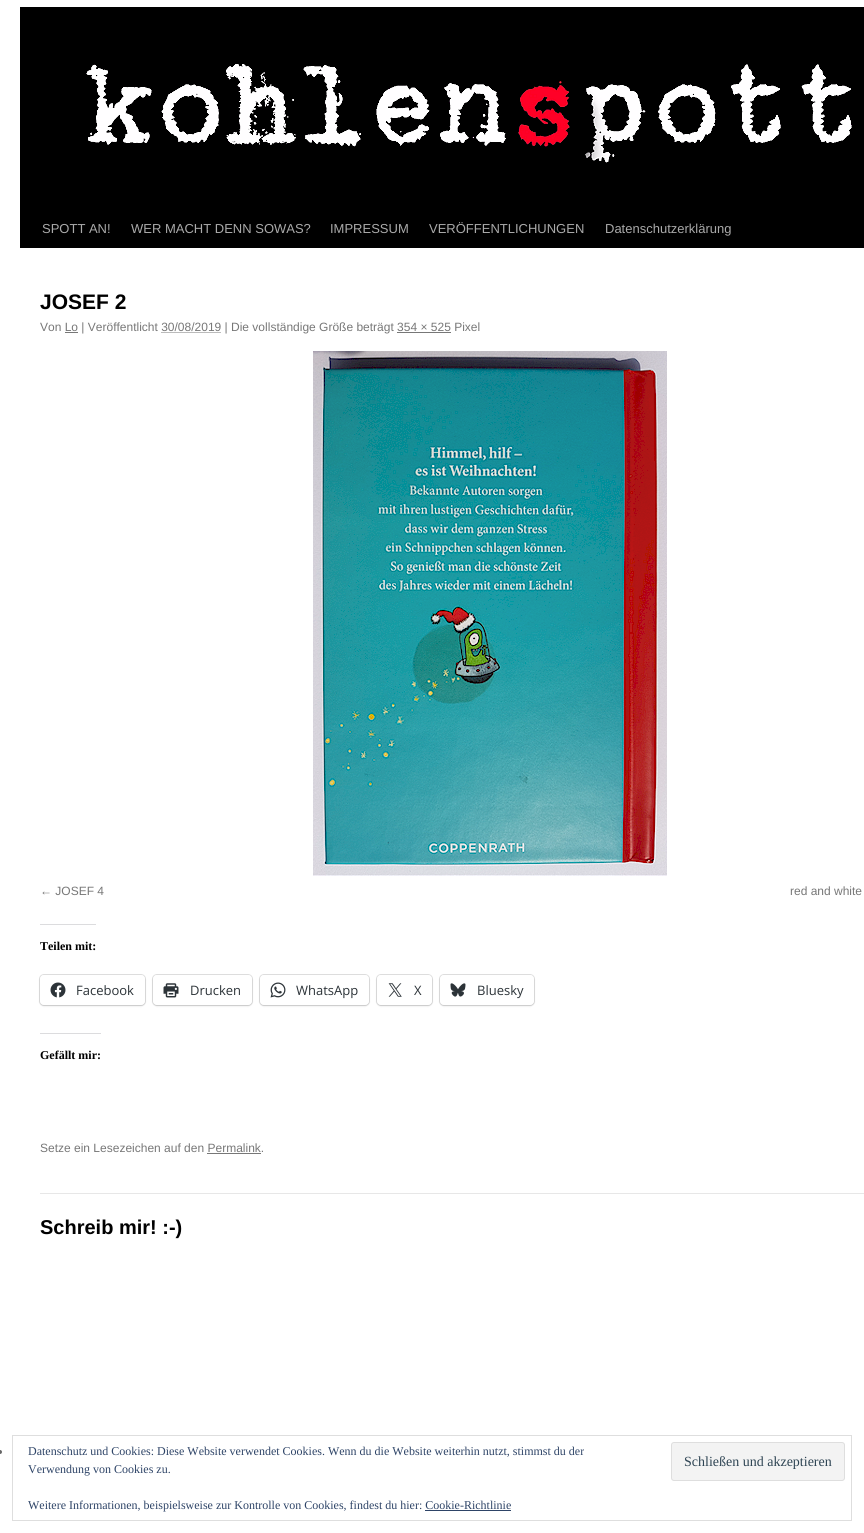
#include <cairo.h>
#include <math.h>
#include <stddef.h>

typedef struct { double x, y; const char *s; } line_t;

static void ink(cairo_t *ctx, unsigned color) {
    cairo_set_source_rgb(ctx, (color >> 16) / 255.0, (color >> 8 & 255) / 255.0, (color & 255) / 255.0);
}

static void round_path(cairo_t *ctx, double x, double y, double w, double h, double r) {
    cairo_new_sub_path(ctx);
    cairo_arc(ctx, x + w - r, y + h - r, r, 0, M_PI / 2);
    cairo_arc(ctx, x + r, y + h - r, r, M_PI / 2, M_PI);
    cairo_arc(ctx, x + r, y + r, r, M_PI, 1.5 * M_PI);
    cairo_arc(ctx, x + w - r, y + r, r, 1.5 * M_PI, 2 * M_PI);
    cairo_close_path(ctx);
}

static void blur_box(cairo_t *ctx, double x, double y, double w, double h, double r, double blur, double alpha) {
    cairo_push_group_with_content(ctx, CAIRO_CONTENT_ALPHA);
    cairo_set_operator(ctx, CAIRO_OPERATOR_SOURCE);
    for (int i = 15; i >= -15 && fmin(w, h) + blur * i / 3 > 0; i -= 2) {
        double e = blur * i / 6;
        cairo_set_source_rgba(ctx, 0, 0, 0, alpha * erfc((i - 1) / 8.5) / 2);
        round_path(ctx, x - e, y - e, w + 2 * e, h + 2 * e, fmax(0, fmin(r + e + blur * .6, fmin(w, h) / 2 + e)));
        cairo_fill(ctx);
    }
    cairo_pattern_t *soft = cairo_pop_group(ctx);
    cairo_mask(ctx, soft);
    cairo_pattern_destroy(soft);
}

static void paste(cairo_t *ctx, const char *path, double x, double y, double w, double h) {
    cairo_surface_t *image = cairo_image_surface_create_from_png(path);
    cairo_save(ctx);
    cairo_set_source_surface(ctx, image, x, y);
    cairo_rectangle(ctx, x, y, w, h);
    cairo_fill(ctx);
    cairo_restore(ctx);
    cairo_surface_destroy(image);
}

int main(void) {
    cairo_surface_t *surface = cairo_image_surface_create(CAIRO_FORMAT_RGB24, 864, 1533);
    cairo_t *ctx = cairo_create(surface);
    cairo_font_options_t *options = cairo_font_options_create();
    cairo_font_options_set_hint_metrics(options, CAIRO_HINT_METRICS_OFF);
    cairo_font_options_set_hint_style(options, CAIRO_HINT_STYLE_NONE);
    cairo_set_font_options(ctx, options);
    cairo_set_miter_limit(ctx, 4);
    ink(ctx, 0xFFFFFF);
    cairo_paint(ctx);
    ink(ctx, 0x000000);
    cairo_rectangle(ctx, 20, 7, 844, 4);
    cairo_fill(ctx);
    cairo_rectangle(ctx, 20, 209, 844, 39);
    cairo_fill(ctx);
    paste(ctx, "media/1.png", 20, 11, 844, 198);
    cairo_select_font_face(ctx, "Liberation Sans", CAIRO_FONT_SLANT_NORMAL, CAIRO_FONT_WEIGHT_NORMAL);
    cairo_set_font_size(ctx, 13);
    ink(ctx, 0xAAAAAA);
    {
        static const line_t items[] = {
            {42, 233, "SPOTT AN!"},
            {131, 233, "WER MACHT DENN SOWAS?"},
            {330, 233, "IMPRESSUM"},
            {429, 233, "VERÖFFENTLICHUNGEN"},
            {605, 233, "Datenschutzerklärung"},
        };
        for (size_t i = 0; i < sizeof items / sizeof *items; i++) {
            cairo_move_to(ctx, items[i].x, items[i].y);
            cairo_show_text(ctx, items[i].s);
        }
    }
    cairo_select_font_face(ctx, "Liberation Sans", CAIRO_FONT_SLANT_NORMAL, CAIRO_FONT_WEIGHT_BOLD);
    cairo_set_font_size(ctx, 21);
    ink(ctx, 0x000000);
    cairo_move_to(ctx, 40, 309);
    cairo_show_text(ctx, "JOSEF 2");
    cairo_select_font_face(ctx, "Liberation Sans", CAIRO_FONT_SLANT_NORMAL, CAIRO_FONT_WEIGHT_NORMAL);
    cairo_set_font_size(ctx, 12);
    ink(ctx, 0x777777);
    cairo_move_to(ctx, 40, 331);
    cairo_show_text(ctx, "Von Lo | Veröffentlicht 30/08/2019 | Die vollständige Größe beträgt 354 × 525 Pixel");
    cairo_rectangle(ctx, 65, 332, 13, 1);
    cairo_fill(ctx);
    cairo_new_path(ctx);
    cairo_move_to(ctx, 161.5, 332.5);
    cairo_line_to(ctx, 221.5, 332.5);
    cairo_set_line_width(ctx, 1);
    cairo_set_dash(ctx, (double[]){1, 1}, 2, 0);
    cairo_stroke(ctx);
    cairo_rectangle(ctx, 397, 332, 54, 1);
    cairo_fill(ctx);
    paste(ctx, "media/2.png", 313, 351, 354, 525);
    cairo_move_to(ctx, 40, 895);
    cairo_show_text(ctx, "← JOSEF 4");
    cairo_move_to(ctx, 790, 895);
    cairo_show_text(ctx, "red and white");
    ink(ctx, 0xDCDCDE);
    cairo_rectangle(ctx, 40, 924, 56, 1);
    cairo_fill(ctx);
    cairo_select_font_face(ctx, "Liberation Serif", CAIRO_FONT_SLANT_NORMAL, CAIRO_FONT_WEIGHT_BOLD);
    ink(ctx, 0x000000);
    cairo_move_to(ctx, 40, 950);
    cairo_show_text(ctx, "Teilen mit:");
    round_path(ctx, 39.5, 974.5, 106, 31, 4.5);
    ink(ctx, 0xE0E0E0);
    cairo_set_dash(ctx, NULL, 0, 0);
    cairo_stroke(ctx);
    ink(ctx, 0x000000);
    blur_box(ctx, 40, 976, 105, 30, 4, 1, 0.12);
    ink(ctx, 0xFFFFFF);
    round_path(ctx, 40, 975, 105, 30, 4);
    cairo_fill(ctx);
    paste(ctx, "media/3.png", 50, 982, 16, 16);
    cairo_select_font_face(ctx, "Open Sans", CAIRO_FONT_SLANT_NORMAL, CAIRO_FONT_WEIGHT_NORMAL);
    cairo_set_font_size(ctx, 13);
    ink(ctx, 0x2C3338);
    cairo_move_to(ctx, 76, 995);
    cairo_show_text(ctx, "Facebook");
    round_path(ctx, 152.5, 974.5, 100, 31, 4.5);
    ink(ctx, 0xE0E0E0);
    cairo_stroke(ctx);
    ink(ctx, 0x000000);
    blur_box(ctx, 153, 976, 99, 30, 4, 1, 0.12);
    ink(ctx, 0xFFFFFF);
    round_path(ctx, 153, 975, 99, 30, 4);
    cairo_fill(ctx);
    paste(ctx, "media/4.png", 163, 983, 16, 15);
    ink(ctx, 0x2C3338);
    cairo_move_to(ctx, 190, 995);
    cairo_show_text(ctx, "Drucken");
    round_path(ctx, 259.5, 974.5, 110, 31, 4.5);
    ink(ctx, 0xE0E0E0);
    cairo_stroke(ctx);
    ink(ctx, 0x000000);
    blur_box(ctx, 260, 976, 109, 30, 4, 1, 0.12);
    ink(ctx, 0xFFFFFF);
    round_path(ctx, 260, 975, 109, 30, 4);
    cairo_fill(ctx);
    paste(ctx, "media/5.png", 270, 982, 16, 16);
    ink(ctx, 0x2C3338);
    cairo_move_to(ctx, 296, 995);
    cairo_show_text(ctx, "WhatsApp");
    round_path(ctx, 376.5, 974.5, 56, 31, 4.5);
    ink(ctx, 0xE0E0E0);
    cairo_stroke(ctx);
    ink(ctx, 0x000000);
    blur_box(ctx, 377, 976, 55, 30, 4, 1, 0.12);
    ink(ctx, 0xFFFFFF);
    round_path(ctx, 377, 975, 55, 30, 4);
    cairo_fill(ctx);
    paste(ctx, "media/6.png", 388, 983, 14, 14);
    ink(ctx, 0x2C3338);
    cairo_move_to(ctx, 414, 995);
    cairo_show_text(ctx, "X");
    round_path(ctx, 439.5, 974.5, 95, 31, 4.5);
    ink(ctx, 0xE0E0E0);
    cairo_stroke(ctx);
    ink(ctx, 0x000000);
    blur_box(ctx, 440, 976, 94, 30, 4, 1, 0.12);
    ink(ctx, 0xFFFFFF);
    round_path(ctx, 440, 975, 94, 30, 4);
    cairo_fill(ctx);
    paste(ctx, "media/7.png", 450, 983, 16, 14);
    ink(ctx, 0x2C3338);
    cairo_move_to(ctx, 477, 995);
    cairo_show_text(ctx, "Bluesky");
    ink(ctx, 0xDCDCDE);
    cairo_rectangle(ctx, 40, 1033, 61, 1);
    cairo_fill(ctx);
    cairo_select_font_face(ctx, "Liberation Serif", CAIRO_FONT_SLANT_NORMAL, CAIRO_FONT_WEIGHT_BOLD);
    cairo_set_font_size(ctx, 12);
    ink(ctx, 0x000000);
    cairo_move_to(ctx, 40, 1059);
    cairo_show_text(ctx, "Gefällt mir:");
    cairo_select_font_face(ctx, "Liberation Sans", CAIRO_FONT_SLANT_NORMAL, CAIRO_FONT_WEIGHT_NORMAL);
    ink(ctx, 0x777777);
    cairo_move_to(ctx, 40, 1152);
    cairo_show_text(ctx, "Setze ein Lesezeichen auf den Permalink.");
    cairo_rectangle(ctx, 207, 1153, 54, 1);
    cairo_fill(ctx);
    ink(ctx, 0xE7E7E7);
    cairo_rectangle(ctx, 40, 1193, 824, 1);
    cairo_fill(ctx);
    cairo_select_font_face(ctx, "Liberation Sans", CAIRO_FONT_SLANT_NORMAL, CAIRO_FONT_WEIGHT_BOLD);
    cairo_set_font_size(ctx, 20);
    ink(ctx, 0x000000);
    cairo_move_to(ctx, 40, 1234);
    cairo_show_text(ctx, "Schreib mir! :-)");
    ink(ctx, 0x666666);
    cairo_new_path(ctx);
    cairo_arc(ctx, 0, 1452, 2, 0, 2 * M_PI);
    cairo_fill(ctx);
    cairo_rectangle(ctx, 12.5, 1435.5, 839, 85);
    ink(ctx, 0xDEDEDE);
    cairo_stroke(ctx);
    cairo_select_font_face(ctx, "Liberation Serif", CAIRO_FONT_SLANT_NORMAL, CAIRO_FONT_WEIGHT_NORMAL);
    cairo_set_font_size(ctx, 12);
    ink(ctx, 0x2E4467);
    cairo_move_to(ctx, 28, 1455);
    cairo_show_text(ctx, "Datenschutz und Cookies: Diese Website verwendet Cookies. Wenn du die Website weiterhin nutzt, stimmst du der");
    cairo_move_to(ctx, 28, 1473);
    cairo_show_text(ctx, "Verwendung von Cookies zu.");
    ink(ctx, 0xF3F3F3);
    round_path(ctx, 671.5, 1442.5, 173, 38, 2.5);
    cairo_fill_preserve(ctx);
    ink(ctx, 0xDEDEDE);
    cairo_stroke(ctx);
    cairo_set_font_size(ctx, 14);
    ink(ctx, 0x2E4453);
    cairo_move_to(ctx, 684, 1466);
    cairo_show_text(ctx, "Schließen und akzeptieren");
    cairo_set_font_size(ctx, 12);
    ink(ctx, 0x2E4467);
    cairo_move_to(ctx, 28, 1509);
    cairo_show_text(ctx, "Weitere Informationen, beispielsweise zur Kontrolle von Cookies, findest du hier: Cookie-Richtlinie");
    cairo_rectangle(ctx, 425, 1510, 86, 1);
    cairo_fill(ctx);
    cairo_surface_write_to_png(surface, "image.png");
    cairo_font_options_destroy(options);
    cairo_destroy(ctx);
    cairo_surface_destroy(surface);
    return 0;
}
